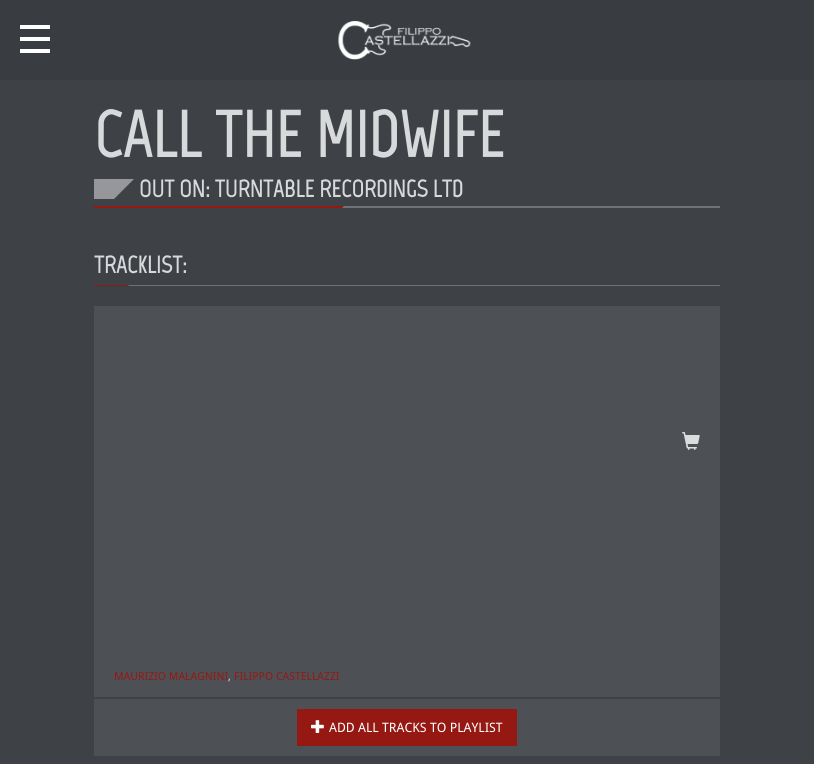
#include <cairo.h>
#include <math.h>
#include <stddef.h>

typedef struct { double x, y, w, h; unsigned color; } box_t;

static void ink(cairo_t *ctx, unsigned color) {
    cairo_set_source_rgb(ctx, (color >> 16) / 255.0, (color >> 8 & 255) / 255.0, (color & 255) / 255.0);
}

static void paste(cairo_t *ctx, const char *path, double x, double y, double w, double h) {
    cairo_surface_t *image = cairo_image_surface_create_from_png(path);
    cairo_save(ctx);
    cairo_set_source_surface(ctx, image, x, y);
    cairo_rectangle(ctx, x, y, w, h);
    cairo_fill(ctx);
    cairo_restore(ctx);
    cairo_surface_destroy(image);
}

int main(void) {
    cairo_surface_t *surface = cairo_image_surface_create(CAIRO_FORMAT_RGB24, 814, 764);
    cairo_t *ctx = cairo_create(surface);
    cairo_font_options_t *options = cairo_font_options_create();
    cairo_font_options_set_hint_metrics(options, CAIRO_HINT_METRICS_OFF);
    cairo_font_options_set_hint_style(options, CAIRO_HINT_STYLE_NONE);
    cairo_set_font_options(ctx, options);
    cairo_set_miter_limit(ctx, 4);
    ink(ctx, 0x3E4247);
    cairo_paint(ctx);
    {
        static const box_t items[] = {
            {0, 0, 814, 80, 0x393D41},
            {20, 25, 30, 4, 0xFFFFFF},
            {20, 37, 30, 4, 0xFFFFFF},
            {20, 49, 30, 4, 0xFFFFFF},
        };
        for (size_t i = 0; i < sizeof items / sizeof *items; i++) {
            ink(ctx, items[i].color);
            cairo_rectangle(ctx, items[i].x, items[i].y, items[i].w, items[i].h);
            cairo_fill(ctx);
        }
    }
    paste(ctx, "media/1.png", 338, 21, 133, 39);
    cairo_select_font_face(ctx, "Marvel", CAIRO_FONT_SLANT_NORMAL, CAIRO_FONT_WEIGHT_BOLD);
    cairo_set_font_size(ctx, 65);
    ink(ctx, 0xD8D9DA);
    cairo_move_to(ctx, 94, 157);
    cairo_show_text(ctx, "CALL THE MIDWIFE");
    ink(ctx, 0x95979A);
    cairo_new_path(ctx);
    cairo_move_to(ctx, 94, 179);
    cairo_line_to(ctx, 134, 179);
    cairo_line_to(ctx, 114, 199);
    cairo_line_to(ctx, 94, 199);
    cairo_close_path(ctx);
    cairo_fill(ctx);
    cairo_set_font_size(ctx, 24);
    ink(ctx, 0xD8D9DA);
    cairo_move_to(ctx, 139, 197);
    cairo_show_text(ctx, "OUT ON: TURNTABLE RECORDINGS LTD");
    ink(ctx, 0x6E7175);
    cairo_rectangle(ctx, 342, 206, 378, 2);
    cairo_fill(ctx);
    cairo_save(ctx);
    cairo_rectangle(ctx, 94, 206, 626, 2);
    cairo_clip(ctx);
    ink(ctx, 0x951813);
    cairo_new_path(ctx);
    cairo_move_to(ctx, 94, 206);
    cairo_line_to(ctx, 344, 206);
    cairo_line_to(ctx, 340, 210);
    cairo_line_to(ctx, 94, 210);
    cairo_close_path(ctx);
    cairo_fill(ctx);
    cairo_restore(ctx);
    ink(ctx, 0xD8D9DA);
    cairo_move_to(ctx, 94, 273);
    cairo_show_text(ctx, "TRACKLIST:");
    ink(ctx, 0x6E7175);
    cairo_rectangle(ctx, 128, 285, 592, 1);
    cairo_fill(ctx);
    cairo_save(ctx);
    cairo_rectangle(ctx, 94, 285, 626, 1);
    cairo_clip(ctx);
    ink(ctx, 0x951813);
    cairo_new_path(ctx);
    cairo_move_to(ctx, 94, 285);
    cairo_line_to(ctx, 129, 285);
    cairo_line_to(ctx, 126, 288);
    cairo_line_to(ctx, 94, 288);
    cairo_close_path(ctx);
    cairo_fill(ctx);
    cairo_restore(ctx);
    ink(ctx, 0x4D5156);
    cairo_rectangle(ctx, 94, 306, 626, 391);
    cairo_fill(ctx);
    paste(ctx, "media/2.png", 682, 432, 18, 18);
    cairo_select_font_face(ctx, "Droid Sans", CAIRO_FONT_SLANT_NORMAL, CAIRO_FONT_WEIGHT_NORMAL);
    cairo_set_font_size(ctx, 11);
    ink(ctx, 0x951813);
    cairo_move_to(ctx, 114, 680);
    cairo_show_text(ctx, "MAURIZIO MALAGNINI");
    ink(ctx, 0xD8D9DA);
    cairo_move_to(ctx, 228, 680);
    cairo_show_text(ctx, ",");
    ink(ctx, 0x951813);
    cairo_move_to(ctx, 234, 680);
    cairo_show_text(ctx, "FILIPPO CASTELLAZZI");
    ink(ctx, 0x4D5156);
    cairo_rectangle(ctx, 94, 699, 626, 57);
    cairo_fill(ctx);
    ink(ctx, 0x951813);
    cairo_rectangle(ctx, 297, 709, 220, 37);
    cairo_fill(ctx);
    paste(ctx, "media/3.png", 311, 720, 13, 13);
    cairo_set_font_size(ctx, 13);
    ink(ctx, 0xFFFFFF);
    cairo_move_to(ctx, 329, 732);
    cairo_show_text(ctx, "ADD ALL TRACKS TO PLAYLIST");
    cairo_surface_write_to_png(surface, "image.png");
    cairo_font_options_destroy(options);
    cairo_destroy(ctx);
    cairo_surface_destroy(surface);
    return 0;
}
